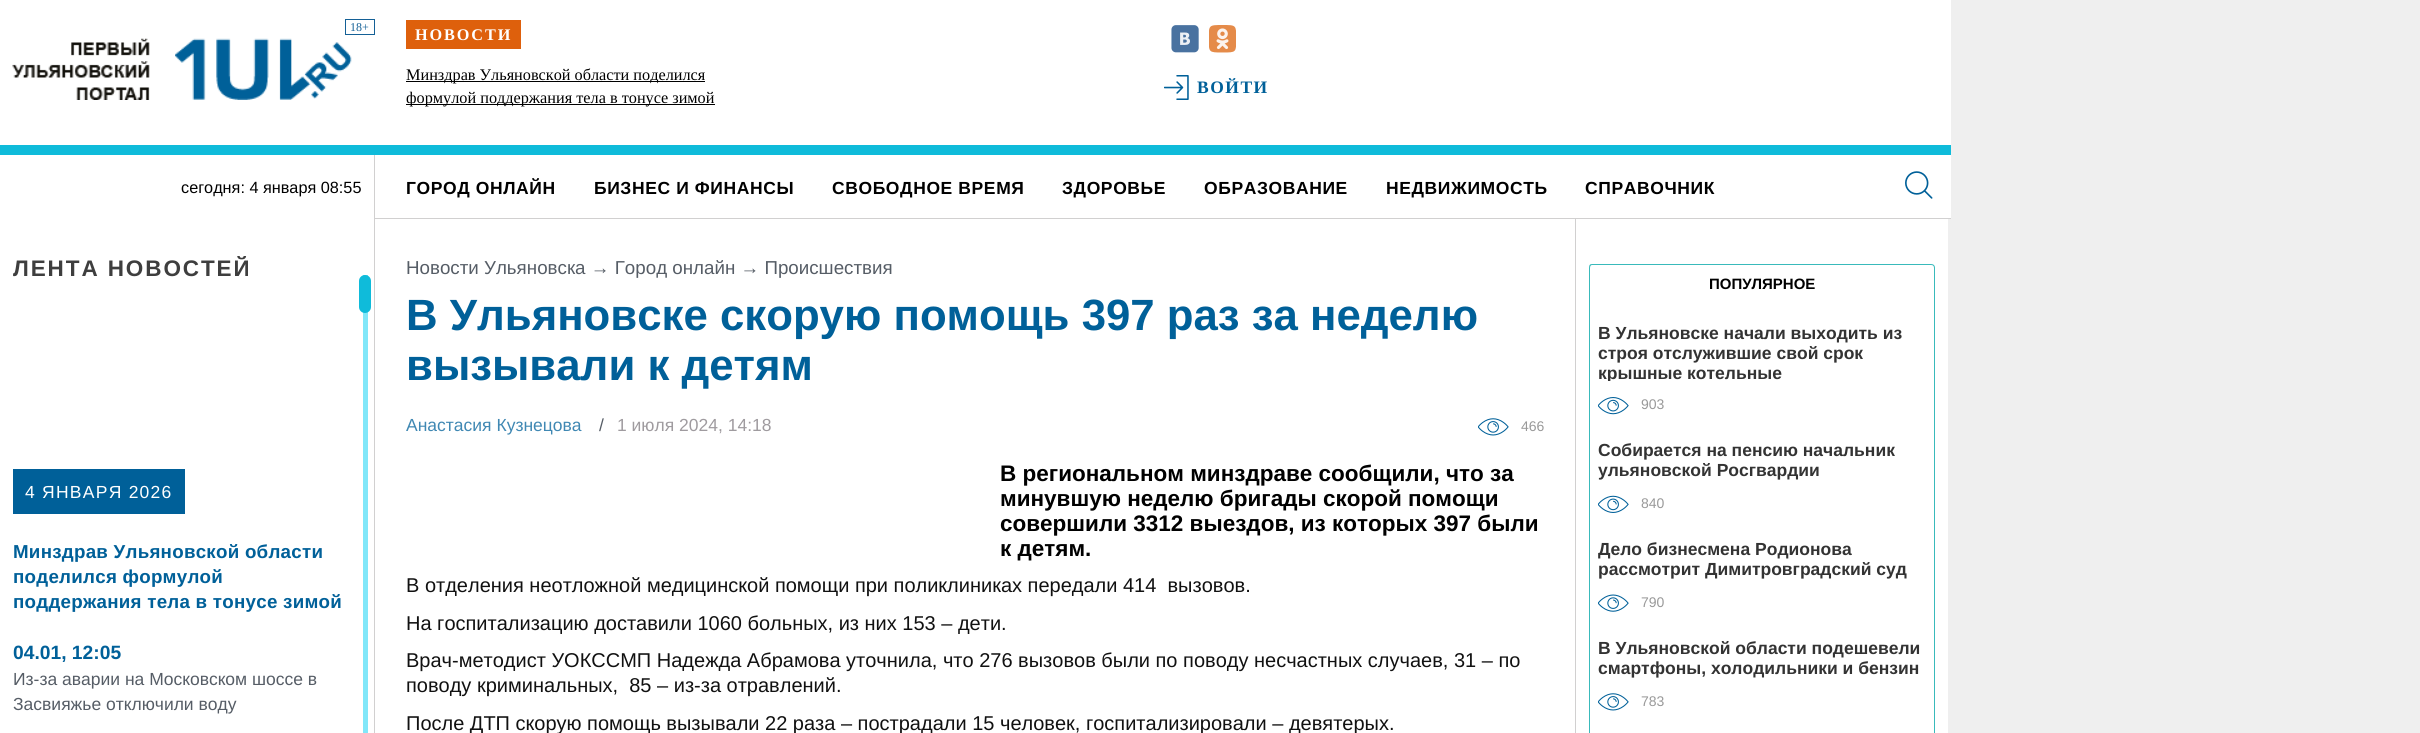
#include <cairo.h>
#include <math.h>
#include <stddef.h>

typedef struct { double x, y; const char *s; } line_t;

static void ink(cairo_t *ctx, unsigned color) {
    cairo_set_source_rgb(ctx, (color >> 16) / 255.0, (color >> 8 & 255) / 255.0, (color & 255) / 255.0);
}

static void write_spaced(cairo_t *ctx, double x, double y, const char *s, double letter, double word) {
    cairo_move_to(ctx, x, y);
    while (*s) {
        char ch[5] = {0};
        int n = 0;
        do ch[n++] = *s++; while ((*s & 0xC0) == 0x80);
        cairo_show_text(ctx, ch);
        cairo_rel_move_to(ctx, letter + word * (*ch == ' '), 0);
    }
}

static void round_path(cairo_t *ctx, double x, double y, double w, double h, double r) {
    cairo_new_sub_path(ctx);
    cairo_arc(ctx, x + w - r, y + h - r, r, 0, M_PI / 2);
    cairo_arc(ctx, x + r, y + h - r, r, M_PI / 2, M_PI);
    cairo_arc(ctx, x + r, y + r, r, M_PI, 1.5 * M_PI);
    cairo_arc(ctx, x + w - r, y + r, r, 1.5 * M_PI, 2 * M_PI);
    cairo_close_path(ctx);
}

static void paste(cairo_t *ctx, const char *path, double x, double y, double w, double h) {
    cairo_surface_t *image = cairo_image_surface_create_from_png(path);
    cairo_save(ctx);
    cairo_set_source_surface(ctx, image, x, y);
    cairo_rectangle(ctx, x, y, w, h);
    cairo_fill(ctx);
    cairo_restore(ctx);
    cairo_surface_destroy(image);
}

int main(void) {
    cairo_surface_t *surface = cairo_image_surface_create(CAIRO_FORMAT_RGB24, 2420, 733);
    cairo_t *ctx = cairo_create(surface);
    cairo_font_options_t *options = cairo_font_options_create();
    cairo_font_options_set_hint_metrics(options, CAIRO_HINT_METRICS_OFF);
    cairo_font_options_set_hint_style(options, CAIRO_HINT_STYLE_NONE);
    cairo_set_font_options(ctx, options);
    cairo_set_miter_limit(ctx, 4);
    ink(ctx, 0xEFEFEF);
    cairo_paint(ctx);
    ink(ctx, 0xFFFFFF);
    cairo_rectangle(ctx, 0, 0, 1951, 145);
    cairo_fill(ctx);
    ink(ctx, 0x0FBBDA);
    cairo_rectangle(ctx, 0, 145, 1951, 10);
    cairo_fill(ctx);
    cairo_rectangle(ctx, 345.5, 19.5, 29, 15);
    ink(ctx, 0x146096);
    cairo_set_line_width(ctx, 1);
    cairo_stroke(ctx);
    cairo_select_font_face(ctx, "Liberation Serif", CAIRO_FONT_SLANT_NORMAL, CAIRO_FONT_WEIGHT_NORMAL);
    cairo_set_font_size(ctx, 12);
    cairo_move_to(ctx, 350, 31);
    cairo_show_text(ctx, "18+");
    paste(ctx, "media/1.png", 12, 38, 138, 62);
    paste(ctx, "media/2.png", 175, 38, 177, 62);
    ink(ctx, 0xDE600C);
    cairo_rectangle(ctx, 406, 20, 115, 29);
    cairo_fill(ctx);
    cairo_select_font_face(ctx, "Liberation Serif", CAIRO_FONT_SLANT_NORMAL, CAIRO_FONT_WEIGHT_BOLD);
    cairo_set_font_size(ctx, 16.25);
    ink(ctx, 0xFFFFFF);
    write_spaced(ctx, 415, 40, "НОВОСТИ", 1.9, 0);
    ink(ctx, 0x000000);
    cairo_rectangle(ctx, 406, 81, 299, 1);
    cairo_fill(ctx);
    cairo_select_font_face(ctx, "Liberation Serif", CAIRO_FONT_SLANT_NORMAL, CAIRO_FONT_WEIGHT_NORMAL);
    cairo_move_to(ctx, 406, 80);
    cairo_show_text(ctx, "Минздрав Ульяновской области поделился");
    cairo_rectangle(ctx, 406, 104, 309, 1);
    cairo_fill(ctx);
    cairo_move_to(ctx, 406, 103);
    cairo_show_text(ctx, "формулой поддержания тела в тонусе зимой");
    paste(ctx, "media/3.png", 1171, 25, 28, 28);
    paste(ctx, "media/4.png", 1209, 25, 27, 28);
    paste(ctx, "media/5.png", 1164, 75, 25, 25);
    cairo_select_font_face(ctx, "Liberation Serif", CAIRO_FONT_SLANT_NORMAL, CAIRO_FONT_WEIGHT_BOLD);
    cairo_set_font_size(ctx, 17.5);
    ink(ctx, 0x006099);
    write_spaced(ctx, 1197, 93, "ВОЙТИ", 1.5, 0);
    ink(ctx, 0xFFFFFF);
    cairo_rectangle(ctx, 0, 155, 1951, 64);
    cairo_fill(ctx);
    ink(ctx, 0xD1D0D0);
    cairo_rectangle(ctx, 374, 155, 1, 64);
    cairo_fill(ctx);
    cairo_select_font_face(ctx, "Liberation Sans", CAIRO_FONT_SLANT_NORMAL, CAIRO_FONT_WEIGHT_NORMAL);
    cairo_set_font_size(ctx, 16.25);
    ink(ctx, 0x000000);
    cairo_move_to(ctx, 181, 193);
    cairo_show_text(ctx, "сегодня: 4 января 08:55");
    ink(ctx, 0xD1D0D0);
    cairo_rectangle(ctx, 375, 218, 1576, 1);
    cairo_fill(ctx);
    cairo_select_font_face(ctx, "Liberation Sans", CAIRO_FONT_SLANT_NORMAL, CAIRO_FONT_WEIGHT_BOLD);
    cairo_set_font_size(ctx, 17.5);
    ink(ctx, 0x000000);
    {
        static const line_t items[] = {
            {406, 194, "ГОРОД ОНЛАЙН"},
            {594, 194, "БИЗНЕС И ФИНАНСЫ"},
            {832, 194, "СВОБОДНОЕ ВРЕМЯ"},
            {1062, 194, "ЗДОРОВЬЕ"},
            {1204, 194, "ОБРАЗОВАНИЕ"},
            {1386, 194, "НЕДВИЖИМОСТЬ"},
            {1585, 194, "СПРАВОЧНИК"},
        };
        for (size_t i = 0; i < sizeof items / sizeof *items; i++) {
            write_spaced(ctx, items[i].x, items[i].y, items[i].s, 0.6, 0);
        }
    }
    paste(ctx, "media/6.png", 1905, 171, 28, 28);
    ink(ctx, 0xFFFFFF);
    cairo_rectangle(ctx, 0, 219, 374, 514);
    cairo_fill(ctx);
    ink(ctx, 0xD1D0D0);
    cairo_rectangle(ctx, 374, 219, 1, 514);
    cairo_fill(ctx);
    cairo_save(ctx);
    cairo_rectangle(ctx, 0, 256, 368, 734);
    cairo_clip(ctx);
    cairo_set_font_size(ctx, 22.5);
    ink(ctx, 0x3E3E3E);
    write_spaced(ctx, 13, 276, "ЛЕНТА НОВОСТЕЙ", 1.9, 0);
    cairo_restore(ctx);
    ink(ctx, 0x006099);
    cairo_rectangle(ctx, 13, 469, 172, 45);
    cairo_fill(ctx);
    cairo_select_font_face(ctx, "Liberation Sans", CAIRO_FONT_SLANT_NORMAL, CAIRO_FONT_WEIGHT_NORMAL);
    ink(ctx, 0xFFFFFF);
    write_spaced(ctx, 25, 498, "4 ЯНВАРЯ 2026", 1.25, 0);
    cairo_select_font_face(ctx, "Liberation Sans", CAIRO_FONT_SLANT_NORMAL, CAIRO_FONT_WEIGHT_BOLD);
    cairo_set_font_size(ctx, 18.75);
    ink(ctx, 0x006099);
    {
        static const line_t items[] = {
            {13, 558, "Минздрав Ульяновской области"},
            {13, 583, "поделился формулой"},
            {13, 608, "поддержания тела в тонусе зимой"},
        };
        for (size_t i = 0; i < sizeof items / sizeof *items; i++) {
            write_spaced(ctx, items[i].x, items[i].y, items[i].s, 0.25, 0);
        }
    }
    cairo_set_font_size(ctx, 19.25);
    cairo_move_to(ctx, 13, 659);
    cairo_show_text(ctx, "04.01, 12:05");
    cairo_select_font_face(ctx, "Liberation Sans", CAIRO_FONT_SLANT_NORMAL, CAIRO_FONT_WEIGHT_NORMAL);
    cairo_set_font_size(ctx, 17.5);
    ink(ctx, 0x565D66);
    cairo_move_to(ctx, 13, 685);
    cairo_show_text(ctx, "Из-за аварии на Московском шоссе в");
    cairo_move_to(ctx, 13, 710);
    cairo_show_text(ctx, "Засвияжье отключили воду");
    ink(ctx, 0x81E7F9);
    cairo_rectangle(ctx, 363, 275, 5, 458);
    cairo_fill(ctx);
    ink(ctx, 0x0FBBDA);
    round_path(ctx, 359, 275, 12, 38, 6);
    cairo_fill(ctx);
    ink(ctx, 0xFFFFFF);
    cairo_rectangle(ctx, 375, 219, 1200, 514);
    cairo_fill(ctx);
    cairo_set_font_size(ctx, 18.75);
    ink(ctx, 0x565D66);
    cairo_move_to(ctx, 406, 274);
    cairo_show_text(ctx, "Новости Ульяновска → Город онлайн → Проиcшествия");
    cairo_select_font_face(ctx, "Liberation Sans", CAIRO_FONT_SLANT_NORMAL, CAIRO_FONT_WEIGHT_BOLD);
    cairo_set_font_size(ctx, 43.75);
    ink(ctx, 0x006099);
    cairo_move_to(ctx, 406, 330);
    cairo_show_text(ctx, "В Ульяновске скорую помощь 397 раз за неделю");
    cairo_move_to(ctx, 406, 380);
    cairo_show_text(ctx, "вызывали к детям");
    cairo_select_font_face(ctx, "Liberation Sans", CAIRO_FONT_SLANT_NORMAL, CAIRO_FONT_WEIGHT_NORMAL);
    cairo_set_font_size(ctx, 17.5);
    ink(ctx, 0x4088B3);
    cairo_move_to(ctx, 406, 431);
    cairo_show_text(ctx, "Анастасия Кузнецова");
    ink(ctx, 0x565D66);
    cairo_move_to(ctx, 599, 431);
    cairo_show_text(ctx, "/");
    ink(ctx, 0x9F9B9F);
    cairo_move_to(ctx, 617, 431);
    cairo_show_text(ctx, "1 июля 2024, 14:18");
    paste(ctx, "media/7.png", 1478, 418, 31, 18);
    cairo_set_font_size(ctx, 14);
    ink(ctx, 0x999999);
    cairo_move_to(ctx, 1521, 431);
    cairo_show_text(ctx, "466");
    cairo_select_font_face(ctx, "Liberation Sans", CAIRO_FONT_SLANT_NORMAL, CAIRO_FONT_WEIGHT_BOLD);
    cairo_set_font_size(ctx, 22.5);
    ink(ctx, 0x000000);
    {
        static const line_t items[] = {
            {1000, 481, "В региональном минздраве сообщили, что за"},
            {1000, 506, "минувшую неделю бригады скорой помощи"},
            {1000, 531, "совершили 3312 выездов, из которых 397 были"},
            {1000, 556, "к детям."},
        };
        for (size_t i = 0; i < sizeof items / sizeof *items; i++) {
            cairo_move_to(ctx, items[i].x, items[i].y);
            cairo_show_text(ctx, items[i].s);
        }
    }
    cairo_select_font_face(ctx, "Liberation Sans", CAIRO_FONT_SLANT_NORMAL, CAIRO_FONT_WEIGHT_NORMAL);
    cairo_set_font_size(ctx, 20);
    ink(ctx, 0x111111);
    {
        static const line_t items[] = {
            {406, 592, "В отделения неотложной медицинской помощи при поликлиниках передали 414  вызовов."},
            {406, 630, "На госпитализацию доставили 1060 больных, из них 153 – дети."},
            {406, 667, "Врач-методист УОКССМП Надежда Абрамова уточнила, что 276 вызовов были по поводу несчастных случаев, 31 – по"},
            {406, 692, "поводу криминальных,  85 – из-за отравлений."},
            {406, 730, "После ДТП скорую помощь вызывали 22 раза – пострадали 15 человек, госпитализировали – девятерых."},
        };
        for (size_t i = 0; i < sizeof items / sizeof *items; i++) {
            cairo_move_to(ctx, items[i].x, items[i].y);
            cairo_show_text(ctx, items[i].s);
        }
    }
    ink(ctx, 0xFFFFFF);
    cairo_rectangle(ctx, 1576, 219, 372, 514);
    cairo_fill(ctx);
    ink(ctx, 0xD1D0D0);
    cairo_rectangle(ctx, 1575, 219, 1, 514);
    cairo_fill(ctx);
    ink(ctx, 0x39BABB);
    cairo_set_fill_rule(ctx, CAIRO_FILL_RULE_EVEN_ODD);
    cairo_new_path(ctx);
    cairo_move_to(ctx, 1592, 264);
    cairo_line_to(ctx, 1931, 264);
    cairo_curve_to(ctx, 1933, 264, 1935, 265, 1935, 268);
    cairo_line_to(ctx, 1935, 304);
    cairo_line_to(ctx, 1589, 304);
    cairo_line_to(ctx, 1589, 268);
    cairo_curve_to(ctx, 1589, 265, 1590, 264, 1592, 264);
    cairo_close_path(ctx);
    cairo_move_to(ctx, 1592, 265);
    cairo_line_to(ctx, 1931, 265);
    cairo_curve_to(ctx, 1933, 265, 1934, 266, 1934, 268);
    cairo_line_to(ctx, 1934, 304);
    cairo_line_to(ctx, 1590, 304);
    cairo_line_to(ctx, 1590, 268);
    cairo_curve_to(ctx, 1590, 266, 1591, 265, 1592, 265);
    cairo_close_path(ctx);
    cairo_fill(ctx);
    cairo_select_font_face(ctx, "Liberation Sans", CAIRO_FONT_SLANT_NORMAL, CAIRO_FONT_WEIGHT_BOLD);
    cairo_set_font_size(ctx, 15);
    ink(ctx, 0x000000);
    cairo_move_to(ctx, 1709, 289);
    cairo_show_text(ctx, "ПОПУЛЯРНОЕ");
    ink(ctx, 0x39BABB);
    cairo_rectangle(ctx, 1934, 304, 1, 429);
    cairo_fill(ctx);
    cairo_rectangle(ctx, 1589, 304, 1, 429);
    cairo_fill(ctx);
    cairo_set_font_size(ctx, 17.5);
    ink(ctx, 0x333333);
    cairo_move_to(ctx, 1598, 339);
    cairo_show_text(ctx, "В Ульяновске начали выходить из");
    cairo_move_to(ctx, 1598, 359);
    cairo_show_text(ctx, "строя отслужившие свой срок");
    cairo_save(ctx);
    cairo_set_fill_rule(ctx, CAIRO_FILL_RULE_WINDING);
    cairo_rectangle(ctx, 1598, 323, 328, 58);
    cairo_clip(ctx);
    cairo_move_to(ctx, 1598, 379);
    cairo_show_text(ctx, "крышные котельные");
    cairo_restore(ctx);
    paste(ctx, "media/8.png", 1598, 397, 31, 18);
    cairo_select_font_face(ctx, "Liberation Sans", CAIRO_FONT_SLANT_NORMAL, CAIRO_FONT_WEIGHT_NORMAL);
    cairo_set_font_size(ctx, 14);
    ink(ctx, 0x999999);
    cairo_move_to(ctx, 1641, 409);
    cairo_show_text(ctx, "903");
    cairo_select_font_face(ctx, "Liberation Sans", CAIRO_FONT_SLANT_NORMAL, CAIRO_FONT_WEIGHT_BOLD);
    cairo_set_font_size(ctx, 17.5);
    ink(ctx, 0x333333);
    cairo_move_to(ctx, 1598, 456);
    cairo_show_text(ctx, "Собирается на пенсию начальник");
    cairo_move_to(ctx, 1598, 476);
    cairo_show_text(ctx, "ульяновской Росгвардии");
    paste(ctx, "media/9.png", 1598, 495, 31, 18);
    cairo_select_font_face(ctx, "Liberation Sans", CAIRO_FONT_SLANT_NORMAL, CAIRO_FONT_WEIGHT_NORMAL);
    cairo_set_font_size(ctx, 14);
    ink(ctx, 0x999999);
    cairo_move_to(ctx, 1641, 508);
    cairo_show_text(ctx, "840");
    cairo_save(ctx);
    cairo_set_fill_rule(ctx, CAIRO_FILL_RULE_WINDING);
    cairo_rectangle(ctx, 1598, 539, 328, 40);
    cairo_clip(ctx);
    cairo_select_font_face(ctx, "Liberation Sans", CAIRO_FONT_SLANT_NORMAL, CAIRO_FONT_WEIGHT_BOLD);
    cairo_set_font_size(ctx, 17.5);
    ink(ctx, 0x333333);
    cairo_move_to(ctx, 1598, 555);
    cairo_show_text(ctx, "Дело бизнесмена Родионова");
    cairo_restore(ctx);
    cairo_select_font_face(ctx, "Liberation Sans", CAIRO_FONT_SLANT_NORMAL, CAIRO_FONT_WEIGHT_BOLD);
    cairo_set_font_size(ctx, 17.5);
    ink(ctx, 0x333333);
    cairo_move_to(ctx, 1598, 575);
    cairo_show_text(ctx, "рассмотрит Димитровградский суд");
    paste(ctx, "media/10.png", 1598, 594, 31, 18);
    cairo_select_font_face(ctx, "Liberation Sans", CAIRO_FONT_SLANT_NORMAL, CAIRO_FONT_WEIGHT_NORMAL);
    cairo_set_font_size(ctx, 14);
    ink(ctx, 0x999999);
    cairo_move_to(ctx, 1641, 607);
    cairo_show_text(ctx, "790");
    cairo_select_font_face(ctx, "Liberation Sans", CAIRO_FONT_SLANT_NORMAL, CAIRO_FONT_WEIGHT_BOLD);
    cairo_set_font_size(ctx, 17.5);
    ink(ctx, 0x333333);
    cairo_move_to(ctx, 1598, 654);
    cairo_show_text(ctx, "В Ульяновской области подешевели");
    cairo_move_to(ctx, 1598, 674);
    cairo_show_text(ctx, "смартфоны, холодильники и бензин");
    paste(ctx, "media/7.png", 1598, 693, 31, 18);
    cairo_select_font_face(ctx, "Liberation Sans", CAIRO_FONT_SLANT_NORMAL, CAIRO_FONT_WEIGHT_NORMAL);
    cairo_set_font_size(ctx, 14);
    ink(ctx, 0x999999);
    cairo_move_to(ctx, 1641, 706);
    cairo_show_text(ctx, "783");
    cairo_surface_write_to_png(surface, "image.png");
    cairo_font_options_destroy(options);
    cairo_destroy(ctx);
    cairo_surface_destroy(surface);
    return 0;
}
